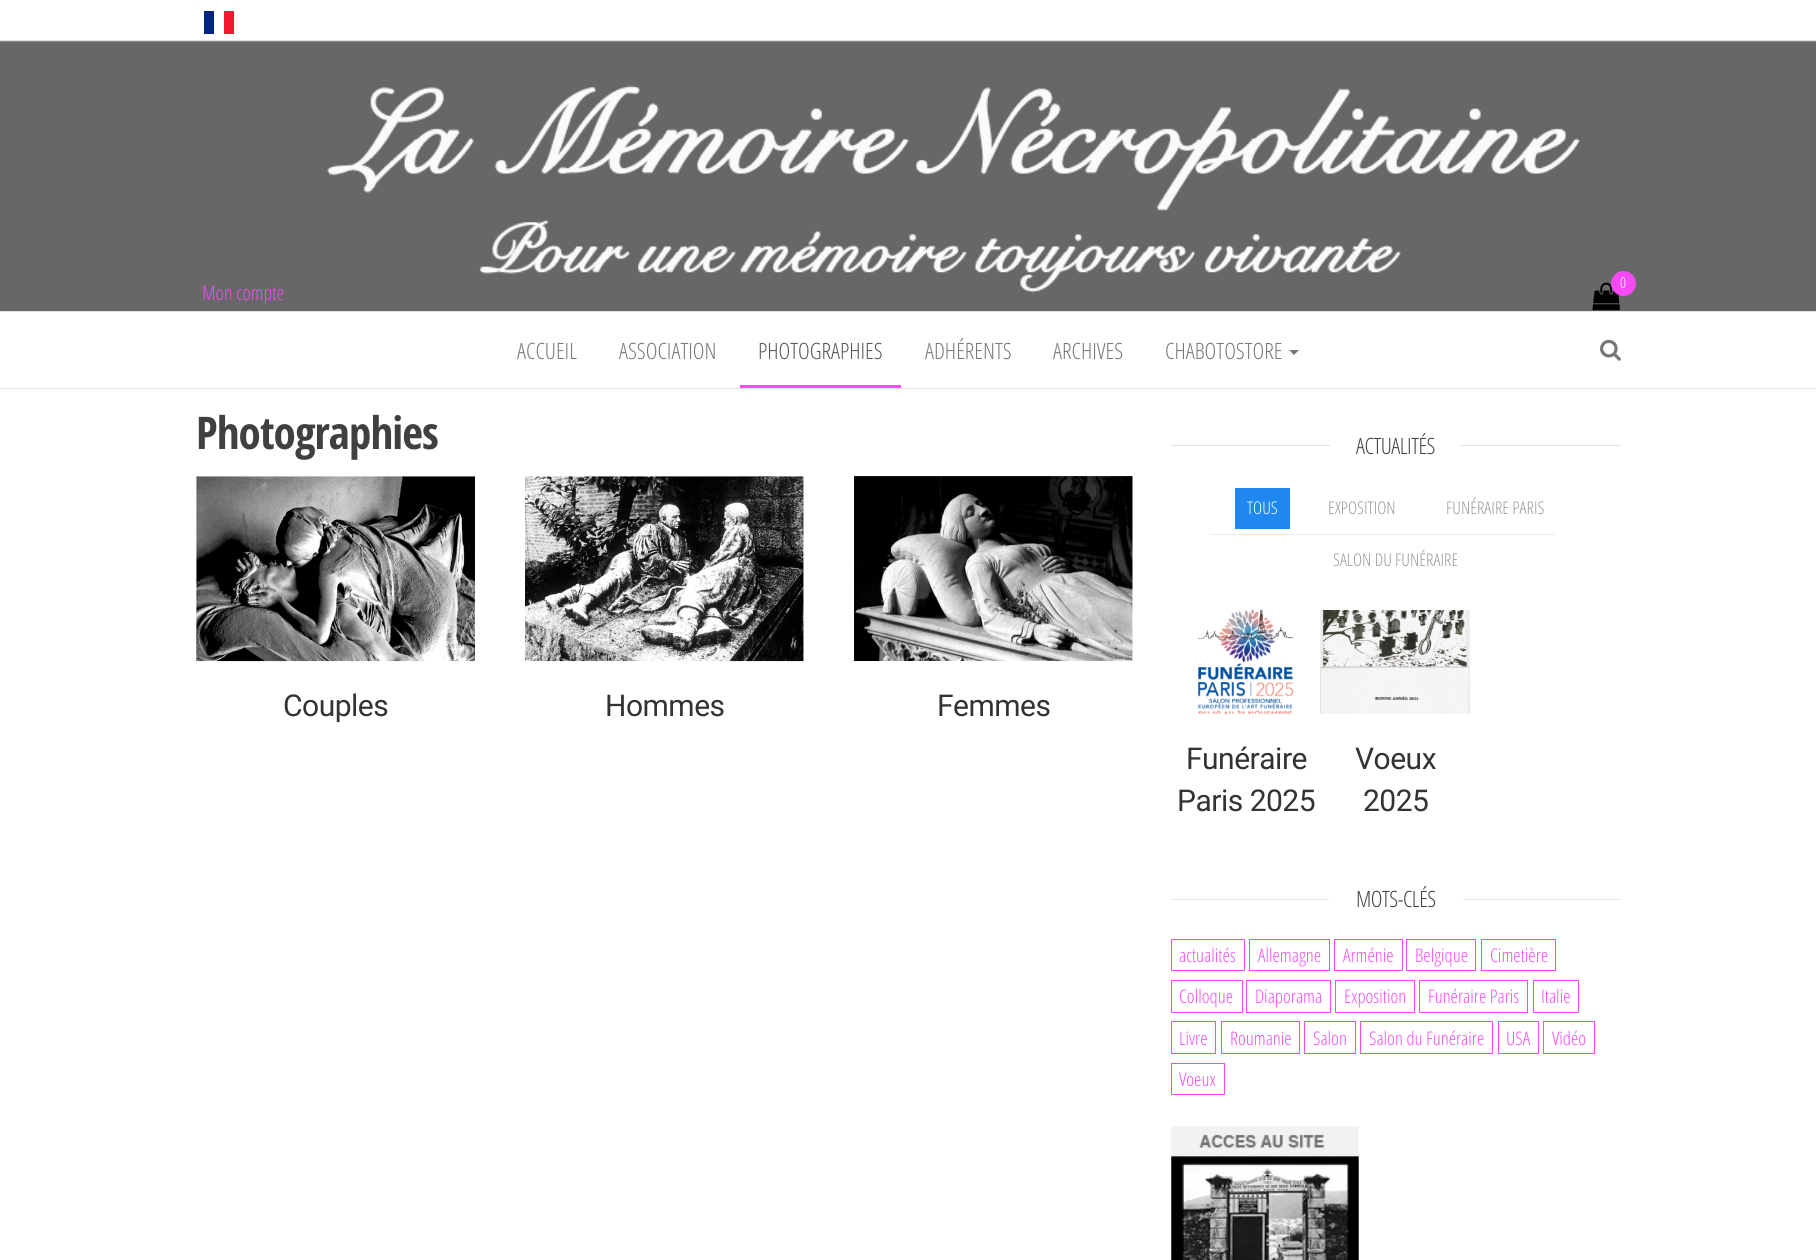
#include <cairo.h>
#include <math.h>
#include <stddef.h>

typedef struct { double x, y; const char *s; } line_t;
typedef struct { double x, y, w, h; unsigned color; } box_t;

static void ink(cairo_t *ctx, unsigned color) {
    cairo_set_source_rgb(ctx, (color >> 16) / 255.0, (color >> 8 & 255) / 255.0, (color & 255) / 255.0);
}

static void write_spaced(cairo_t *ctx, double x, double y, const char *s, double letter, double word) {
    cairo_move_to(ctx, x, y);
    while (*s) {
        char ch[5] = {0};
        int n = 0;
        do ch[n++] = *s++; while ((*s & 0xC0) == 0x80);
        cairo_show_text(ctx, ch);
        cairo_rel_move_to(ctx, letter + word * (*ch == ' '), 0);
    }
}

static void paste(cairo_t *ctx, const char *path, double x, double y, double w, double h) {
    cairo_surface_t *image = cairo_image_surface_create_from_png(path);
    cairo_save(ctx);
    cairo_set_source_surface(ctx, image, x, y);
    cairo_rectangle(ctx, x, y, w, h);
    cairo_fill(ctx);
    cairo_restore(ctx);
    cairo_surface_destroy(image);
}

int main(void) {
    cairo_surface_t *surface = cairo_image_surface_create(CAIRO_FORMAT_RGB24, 1816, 1260);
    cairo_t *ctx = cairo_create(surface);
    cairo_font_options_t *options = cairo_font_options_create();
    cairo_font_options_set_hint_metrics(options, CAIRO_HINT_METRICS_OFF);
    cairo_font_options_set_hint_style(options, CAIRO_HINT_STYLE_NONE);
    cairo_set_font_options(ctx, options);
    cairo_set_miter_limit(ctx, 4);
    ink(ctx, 0xFFFFFF);
    cairo_paint(ctx);
    {
        static const box_t items[] = {
            {0, 40, 1816, 1, 0xE2E2E2},
            {204, 11, 10, 23, 0x00267F},
            {224, 11, 10, 23, 0xF31830},
        };
        for (size_t i = 0; i < sizeof items / sizeof *items; i++) {
            ink(ctx, items[i].color);
            cairo_rectangle(ctx, items[i].x, items[i].y, items[i].w, items[i].h);
            cairo_fill(ctx);
        }
    }
    paste(ctx, "media/1.png", 0, 41, 1816, 270);
    paste(ctx, "media/2.png", 1592, 282, 28, 29);
    ink(ctx, 0xF64AF5);
    cairo_arc(ctx, 1623.5, 283.5, 12.5, 0, 2 * M_PI);
    cairo_fill(ctx);
    cairo_select_font_face(ctx, "Open Sans Condensed Light", CAIRO_FONT_SLANT_NORMAL, CAIRO_FONT_WEIGHT_NORMAL);
    cairo_set_font_size(ctx, 15);
    ink(ctx, 0xFFFFFF);
    cairo_move_to(ctx, 1620, 288);
    cairo_show_text(ctx, "0");
    cairo_set_font_size(ctx, 20);
    ink(ctx, 0xF64AF5);
    cairo_move_to(ctx, 202, 300);
    cairo_show_text(ctx, "Mon compte");
    ink(ctx, 0xE2E2E2);
    cairo_rectangle(ctx, 0, 311, 1816, 1);
    cairo_fill(ctx);
    cairo_rectangle(ctx, 0, 388, 1816, 1);
    cairo_fill(ctx);
    cairo_set_font_size(ctx, 22.5);
    ink(ctx, 0x777777);
    cairo_move_to(ctx, 517, 359);
    cairo_show_text(ctx, "ACCUEIL");
    cairo_move_to(ctx, 619, 359);
    cairo_show_text(ctx, "ASSOCIATION");
    ink(ctx, 0x555555);
    cairo_move_to(ctx, 758, 359);
    cairo_show_text(ctx, "PHOTOGRAPHIES");
    ink(ctx, 0xF64AF5);
    cairo_rectangle(ctx, 740, 385, 161, 3);
    cairo_fill(ctx);
    ink(ctx, 0x777777);
    {
        static const line_t items[] = {
            {925, 359, "ADHÉRENTS"},
            {1053, 359, "ARCHIVES"},
            {1165, 359, "CHABOTOSTORE"},
        };
        for (size_t i = 0; i < sizeof items / sizeof *items; i++) {
            cairo_move_to(ctx, items[i].x, items[i].y);
            cairo_show_text(ctx, items[i].s);
        }
    }
    cairo_new_path(ctx);
    cairo_move_to(ctx, 1289, 350);
    cairo_line_to(ctx, 1299, 350);
    cairo_line_to(ctx, 1294, 355);
    cairo_close_path(ctx);
    cairo_fill(ctx);
    paste(ctx, "media/3.png", 1600, 339, 21, 22);
    cairo_select_font_face(ctx, "Open Sans Condensed", CAIRO_FONT_SLANT_NORMAL, CAIRO_FONT_WEIGHT_BOLD);
    cairo_set_font_size(ctx, 45);
    ink(ctx, 0x404040);
    write_spaced(ctx, 196, 449, "Photographies", -0.9, 0);
    paste(ctx, "media/4.png", 196, 476, 279, 186);
    cairo_select_font_face(ctx, "Roboto", CAIRO_FONT_SLANT_NORMAL, CAIRO_FONT_WEIGHT_NORMAL);
    cairo_set_font_size(ctx, 30);
    ink(ctx, 0x333333);
    write_spaced(ctx, 283, 716, "Couples", -0.5, 0);
    paste(ctx, "media/5.png", 525, 476, 279, 186);
    write_spaced(ctx, 605, 716, "Hommes", -0.5, 0);
    paste(ctx, "media/6.png", 854, 476, 279, 185);
    write_spaced(ctx, 937, 716, "Femmes", -0.5, 0);
    ink(ctx, 0xE2E2E2);
    cairo_rectangle(ctx, 1171, 445, 450, 1);
    cairo_fill(ctx);
    ink(ctx, 0xFFFFFF);
    cairo_rectangle(ctx, 1330, 445, 131, 1);
    cairo_fill(ctx);
    cairo_select_font_face(ctx, "Open Sans Condensed Light", CAIRO_FONT_SLANT_NORMAL, CAIRO_FONT_WEIGHT_NORMAL);
    cairo_set_font_size(ctx, 22.5);
    ink(ctx, 0x404040);
    write_spaced(ctx, 1356, 454, "ACTUALITÉS", -0.5, 0);
    ink(ctx, 0xEBEBEB);
    cairo_rectangle(ctx, 1210, 534, 346, 1);
    cairo_fill(ctx);
    ink(ctx, 0x1E87F0);
    cairo_rectangle(ctx, 1235, 488, 55, 41);
    cairo_fill(ctx);
    cairo_set_font_size(ctx, 17.5);
    ink(ctx, 0xFFFFFF);
    cairo_move_to(ctx, 1247, 514);
    cairo_show_text(ctx, "TOUS");
    ink(ctx, 0x999999);
    {
        static const line_t items[] = {
            {1328, 514, "EXPOSITION"},
            {1446, 514, "FUNÉRAIRE PARIS"},
            {1333, 566, "SALON DU FUNÉRAIRE"},
        };
        for (size_t i = 0; i < sizeof items / sizeof *items; i++) {
            cairo_move_to(ctx, items[i].x, items[i].y);
            cairo_show_text(ctx, items[i].s);
        }
    }
    paste(ctx, "media/7.png", 1197, 610, 97, 104);
    cairo_select_font_face(ctx, "Roboto", CAIRO_FONT_SLANT_NORMAL, CAIRO_FONT_WEIGHT_NORMAL);
    cairo_set_font_size(ctx, 30);
    ink(ctx, 0x333333);
    write_spaced(ctx, 1186, 769, "Funéraire", -0.5, 0);
    write_spaced(ctx, 1177, 811, "Paris 2025", -0.5, 0);
    paste(ctx, "media/8.png", 1320, 610, 150, 104);
    write_spaced(ctx, 1355, 769, "Voeux", -0.5, 0);
    write_spaced(ctx, 1363, 811, "2025", -0.5, 0);
    ink(ctx, 0xE2E2E2);
    cairo_rectangle(ctx, 1171, 899, 450, 1);
    cairo_fill(ctx);
    ink(ctx, 0xFFFFFF);
    cairo_rectangle(ctx, 1329, 899, 134, 1);
    cairo_fill(ctx);
    cairo_select_font_face(ctx, "Open Sans Condensed Light", CAIRO_FONT_SLANT_NORMAL, CAIRO_FONT_WEIGHT_NORMAL);
    cairo_set_font_size(ctx, 22.5);
    ink(ctx, 0x404040);
    write_spaced(ctx, 1356, 907, "MOTS-CLÉS", -0.5, 0);
    cairo_rectangle(ctx, 1171.5, 939.5, 73, 31);
    ink(ctx, 0xF64AF5);
    cairo_set_line_width(ctx, 1);
    cairo_stroke(ctx);
    cairo_set_font_size(ctx, 18.75);
    cairo_move_to(ctx, 1179, 962);
    cairo_show_text(ctx, "actualités");
    cairo_rectangle(ctx, 1249.5, 939.5, 80, 31);
    cairo_stroke(ctx);
    cairo_move_to(ctx, 1258, 962);
    cairo_show_text(ctx, "Allemagne");
    cairo_rectangle(ctx, 1334.5, 939.5, 68, 31);
    cairo_stroke(ctx);
    cairo_move_to(ctx, 1343, 962);
    cairo_show_text(ctx, "Arménie");
    cairo_rectangle(ctx, 1406.5, 939.5, 69, 31);
    cairo_stroke(ctx);
    cairo_move_to(ctx, 1415, 962);
    cairo_show_text(ctx, "Belgique");
    cairo_rectangle(ctx, 1481.5, 939.5, 74, 31);
    cairo_stroke(ctx);
    cairo_move_to(ctx, 1490, 962);
    cairo_show_text(ctx, "Cimetière");
    cairo_rectangle(ctx, 1171.5, 980.5, 71, 32);
    cairo_stroke(ctx);
    cairo_move_to(ctx, 1179, 1003);
    cairo_show_text(ctx, "Colloque");
    cairo_rectangle(ctx, 1246.5, 980.5, 84, 32);
    cairo_stroke(ctx);
    cairo_move_to(ctx, 1255, 1003);
    cairo_show_text(ctx, "Diaporama");
    cairo_rectangle(ctx, 1335.5, 980.5, 79, 32);
    cairo_stroke(ctx);
    cairo_move_to(ctx, 1344, 1003);
    cairo_show_text(ctx, "Exposition");
    cairo_rectangle(ctx, 1419.5, 980.5, 108, 32);
    cairo_stroke(ctx);
    cairo_move_to(ctx, 1428, 1003);
    cairo_show_text(ctx, "Funéraire Paris");
    cairo_rectangle(ctx, 1533.5, 980.5, 45, 32);
    cairo_stroke(ctx);
    cairo_move_to(ctx, 1541, 1003);
    cairo_show_text(ctx, "Italie");
    cairo_rectangle(ctx, 1171.5, 1021.5, 44, 32);
    cairo_stroke(ctx);
    cairo_move_to(ctx, 1179, 1045);
    cairo_show_text(ctx, "Livre");
    cairo_rectangle(ctx, 1221.5, 1021.5, 78, 32);
    cairo_stroke(ctx);
    cairo_move_to(ctx, 1230, 1045);
    cairo_show_text(ctx, "Roumanie");
    cairo_rectangle(ctx, 1304.5, 1021.5, 51, 32);
    cairo_stroke(ctx);
    cairo_move_to(ctx, 1313, 1045);
    cairo_show_text(ctx, "Salon");
    cairo_rectangle(ctx, 1360.5, 1021.5, 132, 32);
    cairo_stroke(ctx);
    cairo_move_to(ctx, 1369, 1045);
    cairo_show_text(ctx, "Salon du Funéraire");
    cairo_rectangle(ctx, 1498.5, 1021.5, 40, 32);
    cairo_stroke(ctx);
    cairo_move_to(ctx, 1506, 1045);
    cairo_show_text(ctx, "USA");
    cairo_rectangle(ctx, 1543.5, 1021.5, 51, 32);
    cairo_stroke(ctx);
    cairo_move_to(ctx, 1552, 1045);
    cairo_show_text(ctx, "Vidéo");
    cairo_rectangle(ctx, 1171.5, 1063.5, 53, 31);
    cairo_stroke(ctx);
    cairo_move_to(ctx, 1179, 1086);
    cairo_show_text(ctx, "Voeux");
    paste(ctx, "media/9.png", 1171, 1126, 188, 134);
    cairo_surface_write_to_png(surface, "image.png");
    cairo_font_options_destroy(options);
    cairo_destroy(ctx);
    cairo_surface_destroy(surface);
    return 0;
}
